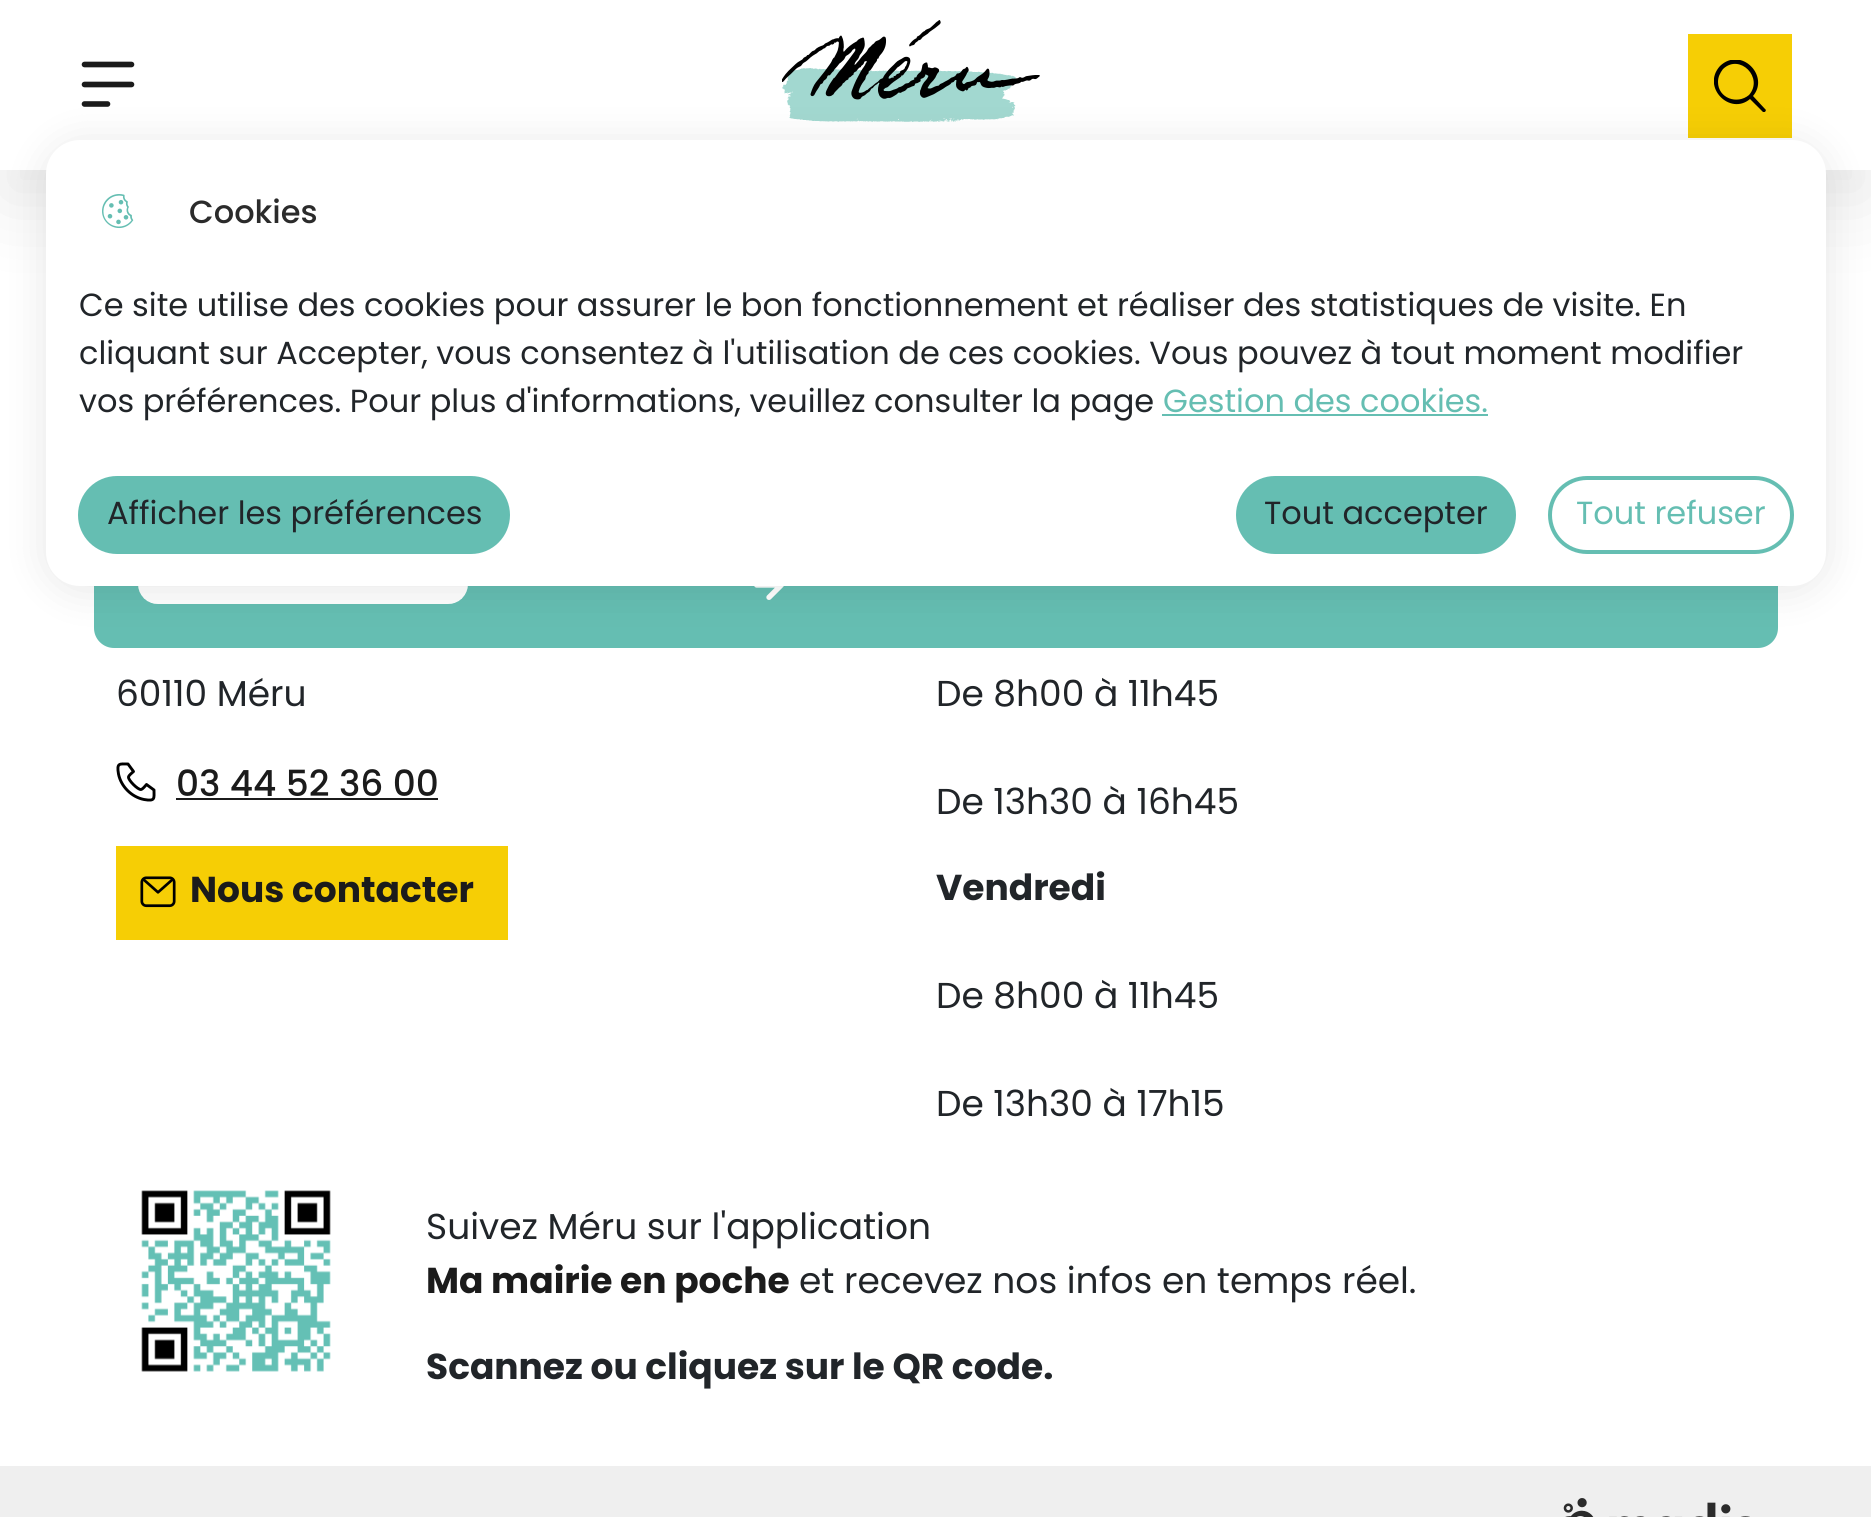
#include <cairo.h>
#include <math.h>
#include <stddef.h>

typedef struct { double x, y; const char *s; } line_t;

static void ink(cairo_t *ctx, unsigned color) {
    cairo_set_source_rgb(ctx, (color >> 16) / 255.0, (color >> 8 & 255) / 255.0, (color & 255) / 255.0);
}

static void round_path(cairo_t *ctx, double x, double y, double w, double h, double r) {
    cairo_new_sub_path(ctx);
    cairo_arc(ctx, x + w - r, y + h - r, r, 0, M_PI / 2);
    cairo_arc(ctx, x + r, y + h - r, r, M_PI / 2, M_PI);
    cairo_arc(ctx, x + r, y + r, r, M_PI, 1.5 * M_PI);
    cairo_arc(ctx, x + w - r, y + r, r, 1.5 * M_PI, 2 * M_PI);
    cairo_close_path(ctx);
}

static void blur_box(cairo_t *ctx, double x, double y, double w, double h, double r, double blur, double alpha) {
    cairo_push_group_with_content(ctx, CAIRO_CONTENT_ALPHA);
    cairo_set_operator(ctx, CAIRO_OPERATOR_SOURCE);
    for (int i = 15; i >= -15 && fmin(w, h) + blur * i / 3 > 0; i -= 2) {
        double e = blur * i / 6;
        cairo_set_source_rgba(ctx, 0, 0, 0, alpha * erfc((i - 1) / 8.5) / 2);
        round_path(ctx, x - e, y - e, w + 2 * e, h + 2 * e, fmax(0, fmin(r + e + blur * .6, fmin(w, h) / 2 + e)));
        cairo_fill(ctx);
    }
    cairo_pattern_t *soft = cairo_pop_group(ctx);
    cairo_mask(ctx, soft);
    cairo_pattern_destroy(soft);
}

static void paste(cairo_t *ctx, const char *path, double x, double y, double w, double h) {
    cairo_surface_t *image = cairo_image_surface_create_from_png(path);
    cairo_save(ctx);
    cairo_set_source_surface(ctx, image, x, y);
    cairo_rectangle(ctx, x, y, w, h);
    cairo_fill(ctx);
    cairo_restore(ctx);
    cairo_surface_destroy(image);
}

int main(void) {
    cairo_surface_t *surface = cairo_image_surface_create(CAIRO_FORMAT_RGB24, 1871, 1517);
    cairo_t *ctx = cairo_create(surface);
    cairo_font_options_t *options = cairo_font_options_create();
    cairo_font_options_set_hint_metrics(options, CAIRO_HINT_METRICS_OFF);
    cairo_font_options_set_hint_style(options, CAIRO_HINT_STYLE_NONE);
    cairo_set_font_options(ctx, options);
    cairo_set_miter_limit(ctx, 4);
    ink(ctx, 0xFFFFFF);
    cairo_paint(ctx);
    ink(ctx, 0x1B1B1B);
    blur_box(ctx, 0, 30, 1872, 170, 0, 40, 0.1);
    ink(ctx, 0xFFFFFF);
    cairo_rectangle(ctx, 0, 0, 1871, 170);
    cairo_fill(ctx);
    cairo_new_path(ctx);
    cairo_move_to(ctx, 84.5, 64.5);
    cairo_line_to(ctx, 131.5, 64.5);
    cairo_move_to(ctx, 84.5, 84.5);
    cairo_line_to(ctx, 131.5, 84.5);
    cairo_move_to(ctx, 84.5, 104);
    cairo_line_to(ctx, 107.5, 104);
    ink(ctx, 0x1B1B1B);
    cairo_set_line_width(ctx, 5.6);
    cairo_set_line_cap(ctx, CAIRO_LINE_CAP_ROUND);
    cairo_stroke(ctx);
    paste(ctx, "media/3.png", 782, 68, 234, 54);
    paste(ctx, "media/2.png", 782, 20, 258, 80);
    ink(ctx, 0xF6CE05);
    cairo_rectangle(ctx, 1688, 34, 104, 104);
    cairo_fill(ctx);
    cairo_save(ctx);
    cairo_rectangle(ctx, 1714, 60, 52, 52);
    cairo_clip(ctx);
    ink(ctx, 0x000000);
    cairo_set_fill_rule(ctx, CAIRO_FILL_RULE_EVEN_ODD);
    cairo_new_path(ctx);
    cairo_move_to(ctx, 1765, 109);
    cairo_line_to(ctx, 1753, 96);
    cairo_curve_to(ctx, 1770, 76, 1741, 46, 1720, 66);
    cairo_curve_to(ctx, 1701, 87, 1730, 116, 1750, 99);
    cairo_line_to(ctx, 1763, 112);
    cairo_curve_to(ctx, 1765, 113, 1767, 110, 1765, 109);
    cairo_close_path(ctx);
    cairo_move_to(ctx, 1718, 82);
    cairo_curve_to(ctx, 1718, 77, 1720, 73, 1723, 69);
    cairo_curve_to(ctx, 1740, 53, 1764, 78, 1749, 95);
    cairo_curve_to(ctx, 1737, 105, 1718, 98, 1718, 82);
    cairo_close_path(ctx);
    cairo_fill(ctx);
    cairo_restore(ctx);
    ink(ctx, 0x65BEB2);
    round_path(ctx, 96, 212, 1680, 434, 18);
    cairo_fill_preserve(ctx);
    cairo_set_line_width(ctx, 4);
    cairo_set_line_cap(ctx, CAIRO_LINE_CAP_BUTT);
    cairo_stroke(ctx);
    paste(ctx, "media/4.png", 138, 586, 330, 18);
    paste(ctx, "media/5.png", 754, 586, 30, 14);
    ink(ctx, 0x000000);
    blur_box(ctx, 46, 144, 1780, 446, 34, 20, 0.1);
    ink(ctx, 0xFFFFFF);
    round_path(ctx, 46, 140, 1780, 446, 34);
    cairo_fill(ctx);
    paste(ctx, "media/1.png", 102, 194, 32, 35);
    cairo_select_font_face(ctx, "Poppins Medium", CAIRO_FONT_SLANT_NORMAL, CAIRO_FONT_WEIGHT_NORMAL);
    cairo_set_font_size(ctx, 32);
    ink(ctx, 0x2B2B2B);
    cairo_move_to(ctx, 189, 223);
    cairo_show_text(ctx, "Cookies");
    cairo_select_font_face(ctx, "Poppins", CAIRO_FONT_SLANT_NORMAL, CAIRO_FONT_WEIGHT_NORMAL);
    ink(ctx, 0x212529);
    {
        static const line_t items[] = {
            {79, 316, "Ce site utilise des cookies pour assurer le bon fonctionnement et réaliser des statistiques de visite. En"},
            {79, 364, "cliquant sur Accepter, vous consentez à l'utilisation de ces cookies. Vous pouvez à tout moment modifier"},
            {79, 412, "vos préférences. Pour plus d'informations, veuillez consulter la page"},
        };
        for (size_t i = 0; i < sizeof items / sizeof *items; i++) {
            cairo_move_to(ctx, items[i].x, items[i].y);
            cairo_show_text(ctx, items[i].s);
        }
    }
    ink(ctx, 0x65BEB2);
    cairo_move_to(ctx, 1163, 412);
    cairo_show_text(ctx, "Gestion des cookies.");
    cairo_rectangle(ctx, 1162, 414, 326, 2);
    cairo_fill(ctx);
    round_path(ctx, 80, 478, 428, 74, 37);
    cairo_fill_preserve(ctx);
    cairo_stroke(ctx);
    ink(ctx, 0x212529);
    cairo_move_to(ctx, 107, 524);
    cairo_show_text(ctx, "Afficher les préférences");
    ink(ctx, 0x65BEB2);
    round_path(ctx, 1238, 478, 276, 74, 37);
    cairo_fill_preserve(ctx);
    cairo_stroke(ctx);
    ink(ctx, 0x212529);
    cairo_move_to(ctx, 1264, 524);
    cairo_show_text(ctx, "Tout accepter");
    round_path(ctx, 1550, 478, 242, 74, 37);
    ink(ctx, 0x65BEB2);
    cairo_stroke(ctx);
    cairo_move_to(ctx, 1576, 524);
    cairo_show_text(ctx, "Tout refuser");
    cairo_set_font_size(ctx, 36);
    ink(ctx, 0x212529);
    cairo_move_to(ctx, 116, 706);
    cairo_show_text(ctx, "60110 Méru");
    cairo_new_path(ctx);
    cairo_move_to(ctx, 128, 764);
    cairo_curve_to(ctx, 119.5, 764, 116.5, 762.5, 118.5, 774);
    cairo_curve_to(ctx, 121, 786.5, 131.5, 797, 144, 799.5);
    cairo_curve_to(ctx, 155.5, 801.5, 154, 798.5, 154, 790);
    cairo_line_to(ctx, 146.5, 784.5);
    cairo_curve_to(ctx, 145, 786, 143, 789, 141, 789.5);
    cairo_curve_to(ctx, 138, 790, 128, 780, 128.5, 777);
    cairo_curve_to(ctx, 129, 775, 132, 773, 133.5, 771.5);
    cairo_close_path(ctx);
    ink(ctx, 0x000000);
    cairo_set_line_width(ctx, 2.9);
    cairo_set_line_cap(ctx, CAIRO_LINE_CAP_ROUND);
    cairo_set_line_join(ctx, CAIRO_LINE_JOIN_ROUND);
    cairo_stroke(ctx);
    cairo_select_font_face(ctx, "Poppins Medium", CAIRO_FONT_SLANT_NORMAL, CAIRO_FONT_WEIGHT_NORMAL);
    ink(ctx, 0x1B1B1B);
    cairo_move_to(ctx, 176, 796);
    cairo_show_text(ctx, "03 44 52 36 00");
    cairo_rectangle(ctx, 176, 798, 262, 2);
    cairo_fill(ctx);
    ink(ctx, 0xF6CE05);
    cairo_rectangle(ctx, 116, 846, 392, 94);
    cairo_fill(ctx);
    paste(ctx, "media/6.png", 140, 876, 36, 32);
    cairo_select_font_face(ctx, "Poppins", CAIRO_FONT_SLANT_NORMAL, CAIRO_FONT_WEIGHT_BOLD);
    ink(ctx, 0x1B1B1B);
    cairo_move_to(ctx, 190, 902);
    cairo_show_text(ctx, "Nous contacter");
    cairo_select_font_face(ctx, "Poppins", CAIRO_FONT_SLANT_NORMAL, CAIRO_FONT_WEIGHT_NORMAL);
    ink(ctx, 0x212529);
    cairo_move_to(ctx, 936, 706);
    cairo_show_text(ctx, "De 8h00 à 11h45");
    cairo_move_to(ctx, 936, 814);
    cairo_show_text(ctx, "De 13h30 à 16h45");
    cairo_select_font_face(ctx, "Poppins", CAIRO_FONT_SLANT_NORMAL, CAIRO_FONT_WEIGHT_BOLD);
    cairo_move_to(ctx, 936, 900);
    cairo_show_text(ctx, "Vendredi");
    cairo_select_font_face(ctx, "Poppins", CAIRO_FONT_SLANT_NORMAL, CAIRO_FONT_WEIGHT_NORMAL);
    cairo_move_to(ctx, 936, 1008);
    cairo_show_text(ctx, "De 8h00 à 11h45");
    cairo_move_to(ctx, 936, 1116);
    cairo_show_text(ctx, "De 13h30 à 17h15");
    paste(ctx, "media/7.png", 141, 1190, 190, 182);
    cairo_move_to(ctx, 426, 1239);
    cairo_show_text(ctx, "Suivez Méru sur l'application");
    cairo_select_font_face(ctx, "Poppins", CAIRO_FONT_SLANT_NORMAL, CAIRO_FONT_WEIGHT_BOLD);
    ink(ctx, 0x1B1B1B);
    cairo_move_to(ctx, 426, 1293);
    cairo_show_text(ctx, "Ma mairie en poche");
    cairo_select_font_face(ctx, "Poppins", CAIRO_FONT_SLANT_NORMAL, CAIRO_FONT_WEIGHT_NORMAL);
    ink(ctx, 0x212529);
    cairo_move_to(ctx, 799, 1293);
    cairo_show_text(ctx, "et recevez nos infos en temps réel.");
    cairo_select_font_face(ctx, "Poppins", CAIRO_FONT_SLANT_NORMAL, CAIRO_FONT_WEIGHT_BOLD);
    cairo_move_to(ctx, 426, 1379);
    cairo_show_text(ctx, "Scannez ou cliquez sur le QR code.");
    ink(ctx, 0xEFEFEF);
    cairo_rectangle(ctx, 0, 1466, 1871, 51);
    cairo_fill(ctx);
    paste(ctx, "media/8.png", 1563, 1498, 187, 19);
    cairo_surface_write_to_png(surface, "image.png");
    cairo_font_options_destroy(options);
    cairo_destroy(ctx);
    cairo_surface_destroy(surface);
    return 0;
}
